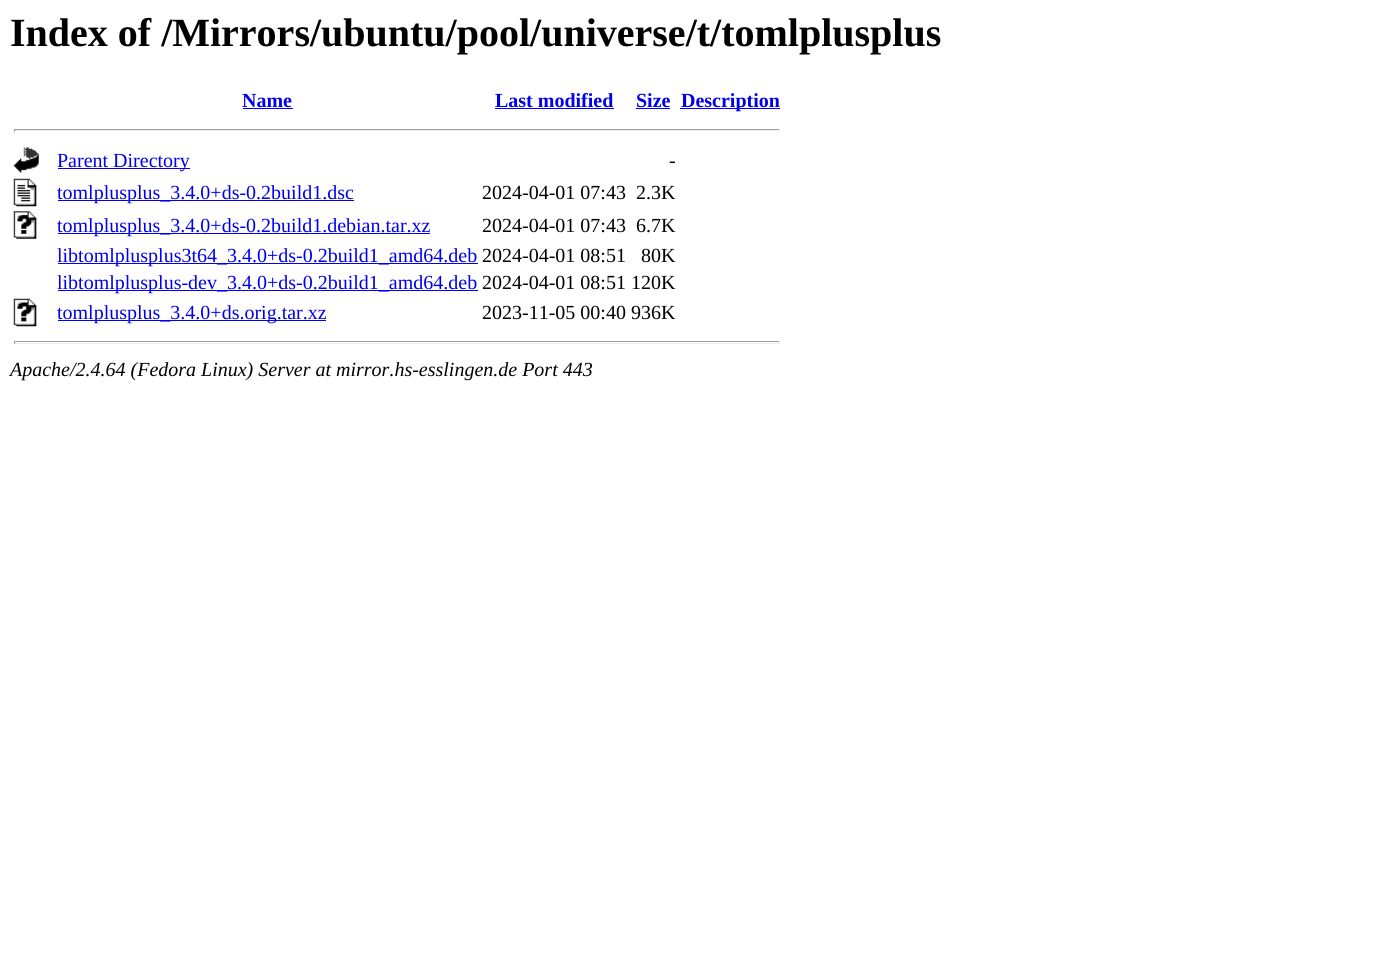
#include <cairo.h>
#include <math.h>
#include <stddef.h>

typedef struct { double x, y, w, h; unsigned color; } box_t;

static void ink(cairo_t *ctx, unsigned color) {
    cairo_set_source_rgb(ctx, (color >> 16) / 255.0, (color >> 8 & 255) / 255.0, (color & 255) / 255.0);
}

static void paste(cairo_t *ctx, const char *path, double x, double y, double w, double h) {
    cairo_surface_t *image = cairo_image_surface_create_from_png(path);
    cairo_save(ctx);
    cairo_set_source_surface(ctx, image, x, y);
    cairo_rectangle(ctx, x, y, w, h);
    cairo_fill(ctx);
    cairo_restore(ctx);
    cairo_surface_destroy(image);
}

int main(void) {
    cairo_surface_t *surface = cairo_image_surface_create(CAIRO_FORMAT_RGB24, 1395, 979);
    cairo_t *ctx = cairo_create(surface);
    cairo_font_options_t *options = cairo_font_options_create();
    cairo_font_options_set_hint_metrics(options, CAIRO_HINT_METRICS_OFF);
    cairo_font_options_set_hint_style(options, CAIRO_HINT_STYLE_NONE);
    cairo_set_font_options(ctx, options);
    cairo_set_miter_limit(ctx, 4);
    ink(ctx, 0xFFFFFF);
    cairo_paint(ctx);
    cairo_select_font_face(ctx, "Liberation Serif", CAIRO_FONT_SLANT_NORMAL, CAIRO_FONT_WEIGHT_BOLD);
    cairo_set_font_size(ctx, 40);
    ink(ctx, 0x000000);
    cairo_move_to(ctx, 10, 46);
    cairo_show_text(ctx, "Index of /Mirrors/ubuntu/pool/universe/t/tomlplusplus");
    cairo_set_font_size(ctx, 20);
    ink(ctx, 0x0000EE);
    cairo_move_to(ctx, 242, 107);
    cairo_show_text(ctx, "Name");
    cairo_rectangle(ctx, 243, 108, 50, 1);
    cairo_fill(ctx);
    cairo_move_to(ctx, 495, 107);
    cairo_show_text(ctx, "Last modified");
    cairo_rectangle(ctx, 495, 108, 119, 1);
    cairo_fill(ctx);
    cairo_move_to(ctx, 636, 107);
    cairo_show_text(ctx, "Size");
    cairo_rectangle(ctx, 636, 108, 34, 1);
    cairo_fill(ctx);
    cairo_rectangle(ctx, 680, 108, 100, 1);
    cairo_fill(ctx);
    cairo_move_to(ctx, 681, 107);
    cairo_show_text(ctx, "Description");
    {
        static const box_t items[] = {
            {14, 129, 766, 1, 0x9F9F9F},
            {779, 129, 1, 3, 0xEEEEEE},
            {14, 130, 766, 1, 0xEEEEEE},
            {14, 129, 1, 3, 0x9F9F9F},
        };
        for (size_t i = 0; i < sizeof items / sizeof *items; i++) {
            ink(ctx, items[i].color);
            cairo_rectangle(ctx, items[i].x, items[i].y, items[i].w, items[i].h);
            cairo_fill(ctx);
        }
    }
    paste(ctx, "media/1.png", 13, 147, 26, 26);
    ink(ctx, 0x0000EE);
    cairo_rectangle(ctx, 58, 168, 132, 1);
    cairo_fill(ctx);
    cairo_select_font_face(ctx, "Liberation Serif", CAIRO_FONT_SLANT_NORMAL, CAIRO_FONT_WEIGHT_NORMAL);
    cairo_move_to(ctx, 57, 167);
    cairo_show_text(ctx, "Parent Directory");
    ink(ctx, 0x000000);
    cairo_move_to(ctx, 669, 167);
    cairo_show_text(ctx, "-");
    paste(ctx, "media/2.png", 13, 178, 24, 29);
    ink(ctx, 0x0000EE);
    cairo_rectangle(ctx, 58, 200, 296, 1);
    cairo_fill(ctx);
    cairo_move_to(ctx, 57, 199);
    cairo_show_text(ctx, "tomlplusplus_3.4.0+ds-0.2build1.dsc");
    ink(ctx, 0x000000);
    cairo_move_to(ctx, 482, 199);
    cairo_show_text(ctx, "2024-04-01 07:43");
    cairo_move_to(ctx, 636, 199);
    cairo_show_text(ctx, "2.3K");
    paste(ctx, "media/3.png", 13, 211, 24, 28);
    ink(ctx, 0x0000EE);
    cairo_rectangle(ctx, 58, 233, 372, 1);
    cairo_fill(ctx);
    cairo_move_to(ctx, 57, 232);
    cairo_show_text(ctx, "tomlplusplus_3.4.0+ds-0.2build1.debian.tar.xz");
    ink(ctx, 0x000000);
    cairo_move_to(ctx, 482, 232);
    cairo_show_text(ctx, "2024-04-01 07:43");
    cairo_move_to(ctx, 636, 232);
    cairo_show_text(ctx, "6.7K");
    ink(ctx, 0x0000EE);
    cairo_rectangle(ctx, 58, 263, 420, 1);
    cairo_fill(ctx);
    cairo_move_to(ctx, 57, 262);
    cairo_show_text(ctx, "libtomlplusplus3t64_3.4.0+ds-0.2build1_amd64.deb");
    ink(ctx, 0x000000);
    cairo_move_to(ctx, 482, 262);
    cairo_show_text(ctx, "2024-04-01 08:51");
    cairo_move_to(ctx, 641, 262);
    cairo_show_text(ctx, "80K");
    ink(ctx, 0x0000EE);
    cairo_rectangle(ctx, 58, 290, 420, 1);
    cairo_fill(ctx);
    cairo_move_to(ctx, 57, 289);
    cairo_show_text(ctx, "libtomlplusplus-dev_3.4.0+ds-0.2build1_amd64.deb");
    ink(ctx, 0x000000);
    cairo_move_to(ctx, 482, 289);
    cairo_show_text(ctx, "2024-04-01 08:51 120K");
    paste(ctx, "media/4.png", 13, 298, 24, 29);
    ink(ctx, 0x0000EE);
    cairo_rectangle(ctx, 58, 320, 268, 1);
    cairo_fill(ctx);
    cairo_move_to(ctx, 57, 319);
    cairo_show_text(ctx, "tomlplusplus_3.4.0+ds.orig.tar.xz");
    ink(ctx, 0x000000);
    cairo_move_to(ctx, 482, 319);
    cairo_show_text(ctx, "2023-11-05 00:40 936K");
    {
        static const box_t items[] = {
            {14, 341, 766, 1, 0x9F9F9F},
            {779, 341, 1, 3, 0xEEEEEE},
            {14, 343, 766, 1, 0xEEEEEE},
            {14, 341, 1, 3, 0x9F9F9F},
        };
        for (size_t i = 0; i < sizeof items / sizeof *items; i++) {
            ink(ctx, items[i].color);
            cairo_rectangle(ctx, items[i].x, items[i].y, items[i].w, items[i].h);
            cairo_fill(ctx);
        }
    }
    cairo_select_font_face(ctx, "Liberation Serif", CAIRO_FONT_SLANT_ITALIC, CAIRO_FONT_WEIGHT_NORMAL);
    ink(ctx, 0x000000);
    cairo_move_to(ctx, 10, 376);
    cairo_show_text(ctx, "Apache/2.4.64 (Fedora Linux) Server at mirror.hs-esslingen.de Port 443");
    cairo_surface_write_to_png(surface, "image.png");
    cairo_font_options_destroy(options);
    cairo_destroy(ctx);
    cairo_surface_destroy(surface);
    return 0;
}
